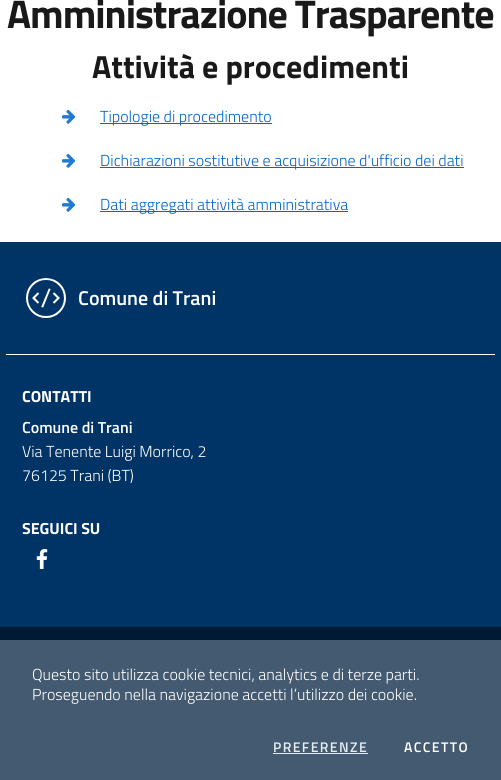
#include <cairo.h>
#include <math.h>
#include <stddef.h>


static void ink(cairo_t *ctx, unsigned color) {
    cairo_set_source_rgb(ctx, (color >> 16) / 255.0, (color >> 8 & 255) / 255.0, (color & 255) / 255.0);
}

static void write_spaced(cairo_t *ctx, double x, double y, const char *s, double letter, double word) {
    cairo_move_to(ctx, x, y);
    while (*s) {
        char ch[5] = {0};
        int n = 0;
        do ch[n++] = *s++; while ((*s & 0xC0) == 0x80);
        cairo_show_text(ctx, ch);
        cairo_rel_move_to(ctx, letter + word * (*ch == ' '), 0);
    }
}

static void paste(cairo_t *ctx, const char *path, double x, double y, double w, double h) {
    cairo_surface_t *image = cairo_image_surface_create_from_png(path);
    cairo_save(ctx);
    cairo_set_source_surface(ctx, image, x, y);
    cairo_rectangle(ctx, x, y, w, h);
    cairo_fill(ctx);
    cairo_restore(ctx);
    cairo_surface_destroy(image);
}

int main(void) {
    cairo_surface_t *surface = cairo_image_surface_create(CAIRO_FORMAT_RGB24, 501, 780);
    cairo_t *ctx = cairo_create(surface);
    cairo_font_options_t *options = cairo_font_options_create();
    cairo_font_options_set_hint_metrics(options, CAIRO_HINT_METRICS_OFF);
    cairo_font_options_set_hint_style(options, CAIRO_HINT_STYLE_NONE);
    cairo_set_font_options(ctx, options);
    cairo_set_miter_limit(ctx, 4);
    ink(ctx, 0xFFFFFF);
    cairo_paint(ctx);
    cairo_select_font_face(ctx, "Titillium Web", CAIRO_FONT_SLANT_NORMAL, CAIRO_FONT_WEIGHT_BOLD);
    cairo_set_font_size(ctx, 40);
    ink(ctx, 0x19191A);
    write_spaced(ctx, 7, 28, "Amministrazione Trasparente", -1, 0);
    cairo_set_font_size(ctx, 32);
    cairo_move_to(ctx, 92, 78);
    cairo_show_text(ctx, "Attività e procedimenti");
    paste(ctx, "media/1.png", 62, 109, 14, 15);
    ink(ctx, 0x0066CC);
    cairo_rectangle(ctx, 100, 123, 172, 1);
    cairo_fill(ctx);
    cairo_select_font_face(ctx, "Titillium Web Light", CAIRO_FONT_SLANT_NORMAL, CAIRO_FONT_WEIGHT_NORMAL);
    cairo_set_font_size(ctx, 16);
    cairo_move_to(ctx, 100, 122);
    cairo_show_text(ctx, "Tipologie di procedimento");
    paste(ctx, "media/1.png", 62, 153, 14, 15);
    cairo_rectangle(ctx, 100, 167, 364, 1);
    cairo_fill(ctx);
    cairo_move_to(ctx, 100, 166);
    cairo_show_text(ctx, "Dichiarazioni sostitutive e acquisizione d'ufficio dei dati");
    paste(ctx, "media/1.png", 62, 197, 14, 15);
    cairo_rectangle(ctx, 100, 211, 248, 1);
    cairo_fill(ctx);
    cairo_move_to(ctx, 100, 210);
    cairo_show_text(ctx, "Dati aggregati attività amministrativa");
    ink(ctx, 0x003366);
    cairo_rectangle(ctx, 0, 242, 501, 385);
    cairo_fill(ctx);
    paste(ctx, "media/2.png", 26, 278, 40, 40);
    cairo_select_font_face(ctx, "Titillium Web SemiBold", CAIRO_FONT_SLANT_NORMAL, CAIRO_FONT_WEIGHT_NORMAL);
    cairo_set_font_size(ctx, 20);
    ink(ctx, 0xFFFFFF);
    cairo_move_to(ctx, 78, 305);
    cairo_show_text(ctx, "Comune di Trani");
    cairo_rectangle(ctx, 6, 354, 489, 1);
    cairo_fill(ctx);
    cairo_select_font_face(ctx, "Titillium Web", CAIRO_FONT_SLANT_NORMAL, CAIRO_FONT_WEIGHT_BOLD);
    cairo_set_font_size(ctx, 16);
    cairo_move_to(ctx, 22, 402);
    cairo_show_text(ctx, "CONTATTI");
    cairo_select_font_face(ctx, "Titillium Web SemiBold", CAIRO_FONT_SLANT_NORMAL, CAIRO_FONT_WEIGHT_NORMAL);
    cairo_move_to(ctx, 22, 433);
    cairo_show_text(ctx, "Comune di Trani");
    cairo_select_font_face(ctx, "Titillium Web Light", CAIRO_FONT_SLANT_NORMAL, CAIRO_FONT_WEIGHT_NORMAL);
    cairo_move_to(ctx, 22, 457);
    cairo_show_text(ctx, "Via Tenente Luigi Morrico, 2");
    cairo_move_to(ctx, 22, 481);
    cairo_show_text(ctx, "76125 Trani (BT)");
    cairo_select_font_face(ctx, "Titillium Web", CAIRO_FONT_SLANT_NORMAL, CAIRO_FONT_WEIGHT_BOLD);
    cairo_move_to(ctx, 22, 534);
    cairo_show_text(ctx, "SEGUICI SU");
    paste(ctx, "media/3.png", 36, 549, 12, 20);
    ink(ctx, 0x001A33);
    cairo_rectangle(ctx, 0, 627, 501, 13);
    cairo_fill(ctx);
    ink(ctx, 0x435A70);
    cairo_rectangle(ctx, 0, 640, 501, 140);
    cairo_fill(ctx);
    cairo_select_font_face(ctx, "Titillium Web Light", CAIRO_FONT_SLANT_NORMAL, CAIRO_FONT_WEIGHT_NORMAL);
    ink(ctx, 0xFFFFFF);
    cairo_move_to(ctx, 32, 680);
    cairo_show_text(ctx, "Questo sito utilizza cookie tecnici, analytics e di terze parti.");
    cairo_move_to(ctx, 32, 700);
    cairo_show_text(ctx, "Proseguendo nella navigazione accetti l’utilizzo dei cookie.");
    cairo_select_font_face(ctx, "Titillium Web SemiBold", CAIRO_FONT_SLANT_NORMAL, CAIRO_FONT_WEIGHT_NORMAL);
    cairo_set_font_size(ctx, 14);
    ink(ctx, 0xE6ECF2);
    write_spaced(ctx, 273, 752, "PREFERENZE", 1.4, 0);
    cairo_rectangle(ctx, 273, 753, 95, 1);
    cairo_fill(ctx);
    ink(ctx, 0xFFFFFF);
    write_spaced(ctx, 404, 752, "ACCETTO", 1.4, 0);
    cairo_surface_write_to_png(surface, "image.png");
    cairo_font_options_destroy(options);
    cairo_destroy(ctx);
    cairo_surface_destroy(surface);
    return 0;
}
